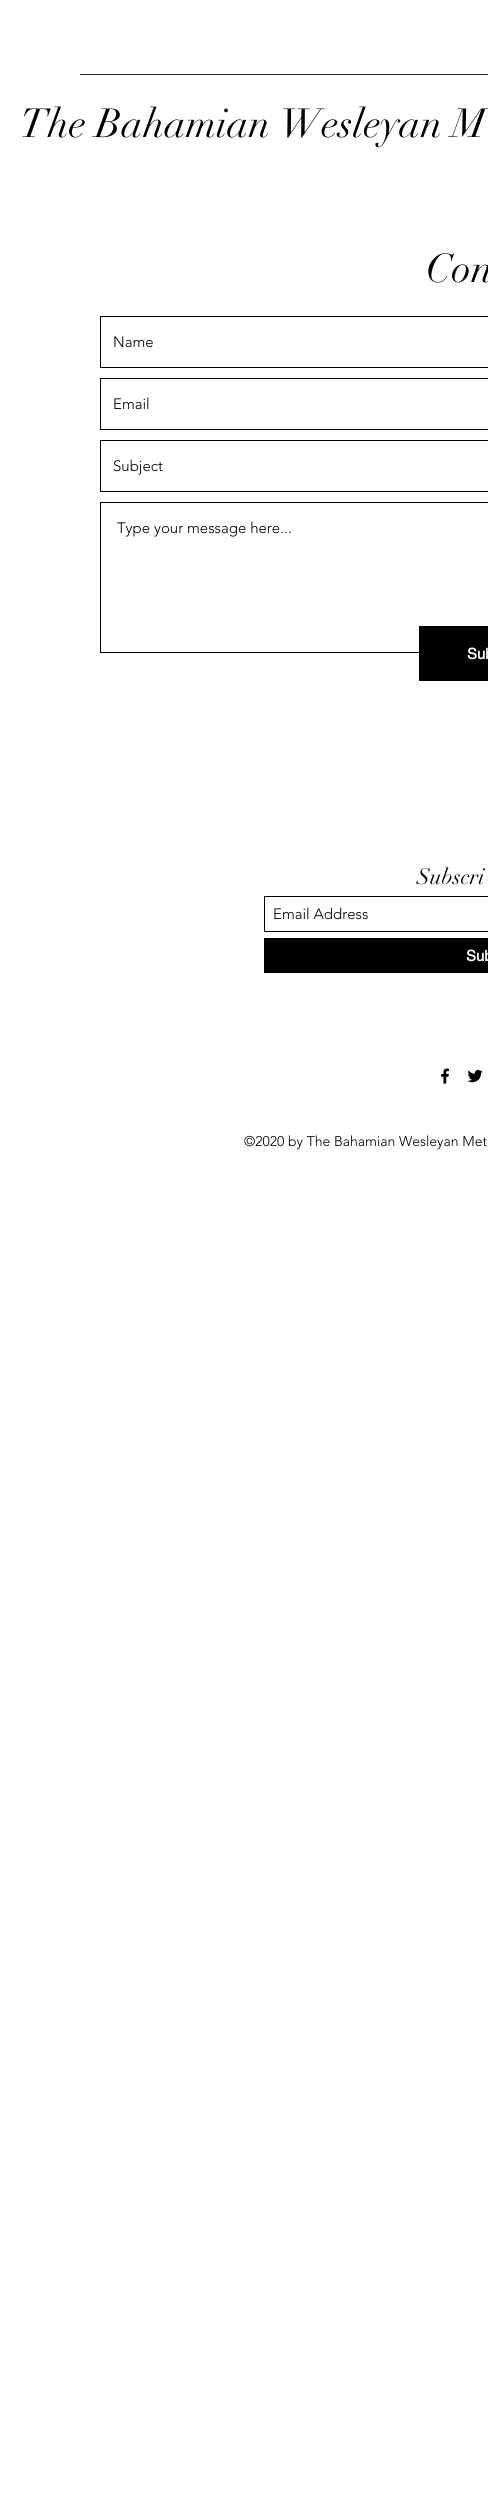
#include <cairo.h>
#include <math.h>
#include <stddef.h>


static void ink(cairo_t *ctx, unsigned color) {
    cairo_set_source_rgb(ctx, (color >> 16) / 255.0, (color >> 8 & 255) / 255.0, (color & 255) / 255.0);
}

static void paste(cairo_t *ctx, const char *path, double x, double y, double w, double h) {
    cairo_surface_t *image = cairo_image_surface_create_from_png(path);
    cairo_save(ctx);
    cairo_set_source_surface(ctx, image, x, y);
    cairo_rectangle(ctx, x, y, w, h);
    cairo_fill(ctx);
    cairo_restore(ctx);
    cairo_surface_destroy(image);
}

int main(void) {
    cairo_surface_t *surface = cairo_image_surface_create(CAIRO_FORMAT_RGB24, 488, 2507);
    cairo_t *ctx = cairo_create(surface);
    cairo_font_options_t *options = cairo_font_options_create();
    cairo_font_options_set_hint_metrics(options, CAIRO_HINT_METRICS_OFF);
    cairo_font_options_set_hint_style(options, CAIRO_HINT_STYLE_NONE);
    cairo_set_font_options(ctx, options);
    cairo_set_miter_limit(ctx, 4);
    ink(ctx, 0xFFFFFF);
    cairo_paint(ctx);
    ink(ctx, 0x262626);
    cairo_rectangle(ctx, 80, 74, 408, 1);
    cairo_fill(ctx);
    cairo_select_font_face(ctx, "didot", CAIRO_FONT_SLANT_NORMAL, CAIRO_FONT_WEIGHT_NORMAL);
    cairo_set_font_size(ctx, 40);
    ink(ctx, 0x000000);
    cairo_move_to(ctx, 20, 137);
    cairo_show_text(ctx, "The Bahamian Wesleyan M");
    cairo_move_to(ctx, 426, 282);
    cairo_show_text(ctx, "Con");
    cairo_rectangle(ctx, 100.5, 316.5, 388, 51);
    cairo_set_line_width(ctx, 1);
    cairo_stroke(ctx);
    cairo_select_font_face(ctx, "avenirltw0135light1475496 Light", CAIRO_FONT_SLANT_NORMAL, CAIRO_FONT_WEIGHT_NORMAL);
    cairo_set_font_size(ctx, 15);
    cairo_move_to(ctx, 113, 347);
    cairo_show_text(ctx, "Name");
    cairo_rectangle(ctx, 100.5, 378.5, 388, 51);
    cairo_stroke(ctx);
    cairo_move_to(ctx, 113, 409);
    cairo_show_text(ctx, "Email");
    cairo_rectangle(ctx, 100.5, 440.5, 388, 51);
    cairo_stroke(ctx);
    cairo_move_to(ctx, 113, 471);
    cairo_show_text(ctx, "Subject");
    cairo_rectangle(ctx, 100.5, 502.5, 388, 150);
    cairo_stroke(ctx);
    cairo_move_to(ctx, 117, 533);
    cairo_show_text(ctx, "Type your message here...");
    cairo_rectangle(ctx, 419, 626, 69, 55);
    cairo_fill(ctx);
    cairo_select_font_face(ctx, "helvetica", CAIRO_FONT_SLANT_NORMAL, CAIRO_FONT_WEIGHT_BOLD);
    ink(ctx, 0xFFFFFF);
    cairo_move_to(ctx, 467, 659);
    cairo_show_text(ctx, "Sub");
    cairo_select_font_face(ctx, "didot", CAIRO_FONT_SLANT_NORMAL, CAIRO_FONT_WEIGHT_NORMAL);
    cairo_set_font_size(ctx, 22);
    ink(ctx, 0x000000);
    cairo_move_to(ctx, 417, 884);
    cairo_show_text(ctx, "Subscri");
    cairo_rectangle(ctx, 264.5, 896.5, 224, 35);
    cairo_stroke(ctx);
    cairo_select_font_face(ctx, "avenirltw0135light1475496 Light", CAIRO_FONT_SLANT_NORMAL, CAIRO_FONT_WEIGHT_NORMAL);
    cairo_set_font_size(ctx, 15);
    cairo_move_to(ctx, 273, 919);
    cairo_show_text(ctx, "Email Address");
    cairo_rectangle(ctx, 264, 938, 224, 35);
    cairo_fill(ctx);
    cairo_select_font_face(ctx, "helvetica", CAIRO_FONT_SLANT_NORMAL, CAIRO_FONT_WEIGHT_BOLD);
    ink(ctx, 0xFFFFFF);
    cairo_move_to(ctx, 466, 961);
    cairo_show_text(ctx, "Sub");
    paste(ctx, "media/1.png", 441, 1068, 9, 16);
    paste(ctx, "media/2.png", 467, 1069, 16, 14);
    cairo_select_font_face(ctx, "avenirltw0135light1475496 Light", CAIRO_FONT_SLANT_NORMAL, CAIRO_FONT_WEIGHT_NORMAL);
    cairo_set_font_size(ctx, 14);
    ink(ctx, 0x000000);
    cairo_move_to(ctx, 244, 1146);
    cairo_show_text(ctx, "©2020 by The Bahamian Wesleyan Met");
    cairo_surface_write_to_png(surface, "image.png");
    cairo_font_options_destroy(options);
    cairo_destroy(ctx);
    cairo_surface_destroy(surface);
    return 0;
}
